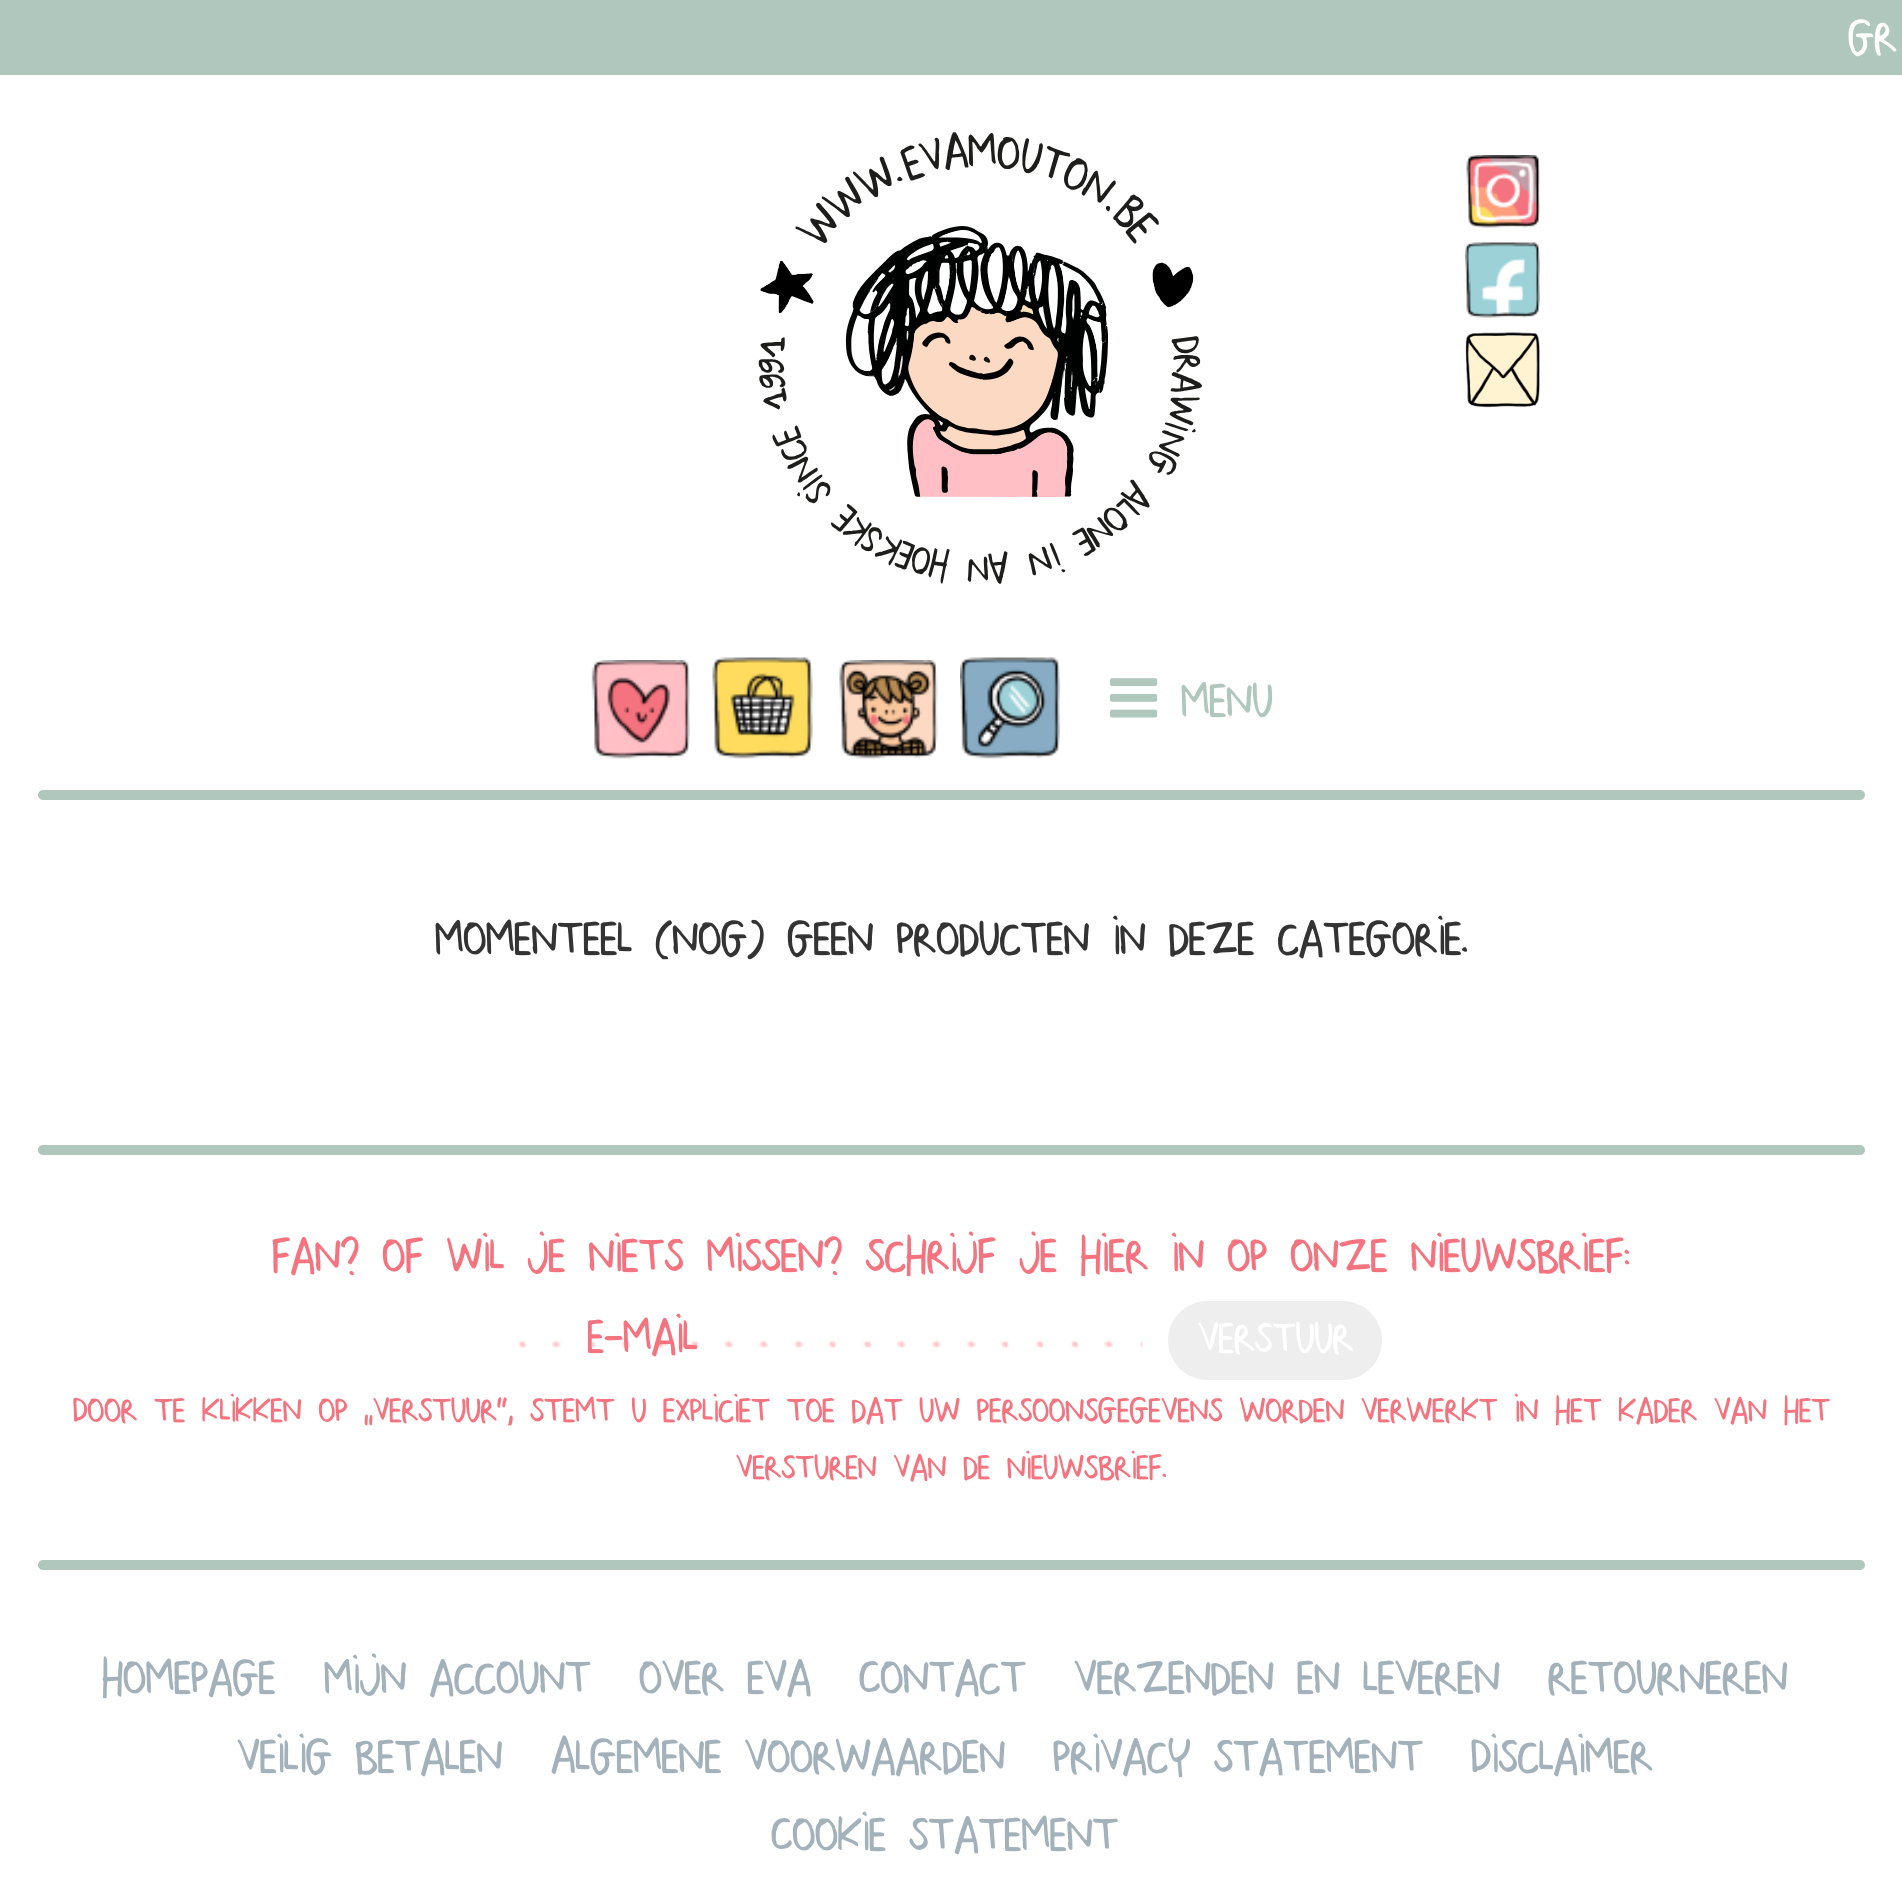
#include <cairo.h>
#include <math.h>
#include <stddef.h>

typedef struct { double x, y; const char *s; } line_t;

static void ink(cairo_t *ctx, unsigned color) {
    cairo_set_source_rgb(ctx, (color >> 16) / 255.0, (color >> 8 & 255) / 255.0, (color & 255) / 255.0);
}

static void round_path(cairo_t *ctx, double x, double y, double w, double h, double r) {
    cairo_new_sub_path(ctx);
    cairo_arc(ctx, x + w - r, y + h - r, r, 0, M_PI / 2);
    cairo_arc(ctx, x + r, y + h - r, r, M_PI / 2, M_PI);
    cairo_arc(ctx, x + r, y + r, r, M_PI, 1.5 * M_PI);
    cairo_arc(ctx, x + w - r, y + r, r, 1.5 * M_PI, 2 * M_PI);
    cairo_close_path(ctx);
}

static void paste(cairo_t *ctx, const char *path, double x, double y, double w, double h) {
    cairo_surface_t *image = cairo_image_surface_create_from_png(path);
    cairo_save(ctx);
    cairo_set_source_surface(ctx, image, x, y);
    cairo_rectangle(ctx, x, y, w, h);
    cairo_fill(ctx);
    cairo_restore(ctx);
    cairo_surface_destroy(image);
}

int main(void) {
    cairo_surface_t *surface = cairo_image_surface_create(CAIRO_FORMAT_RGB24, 1902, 1896);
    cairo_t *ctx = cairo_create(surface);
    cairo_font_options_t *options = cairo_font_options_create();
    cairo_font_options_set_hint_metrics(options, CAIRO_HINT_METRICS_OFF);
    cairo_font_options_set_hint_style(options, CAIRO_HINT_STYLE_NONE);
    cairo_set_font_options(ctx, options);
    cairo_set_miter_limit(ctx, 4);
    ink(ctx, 0xFFFFFF);
    cairo_paint(ctx);
    ink(ctx, 0xB0C7BD);
    cairo_rectangle(ctx, 0, 0, 1902, 75);
    cairo_fill(ctx);
    cairo_select_font_face(ctx, "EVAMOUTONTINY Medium", CAIRO_FONT_SLANT_NORMAL, CAIRO_FONT_WEIGHT_NORMAL);
    cairo_set_font_size(ctx, 55);
    ink(ctx, 0xFFFFFF);
    cairo_move_to(ctx, 1848, 55);
    cairo_show_text(ctx, "Gr");
    paste(ctx, "media/1.png", 758, 132, 444, 452);
    paste(ctx, "media/2.png", 1466, 155, 74, 73);
    paste(ctx, "media/3.png", 1465, 242, 75, 76);
    paste(ctx, "media/4.png", 1465, 332, 75, 76);
    paste(ctx, "media/5.png", 591, 660, 99, 99);
    paste(ctx, "media/6.png", 712, 657, 101, 102);
    paste(ctx, "media/7.png", 839, 660, 99, 99);
    paste(ctx, "media/8.png", 960, 657, 100, 102);
    paste(ctx, "media/9.png", 1110, 678, 48, 40);
    ink(ctx, 0xB0C7BD);
    cairo_move_to(ctx, 1181, 718);
    cairo_show_text(ctx, "Menu");
    round_path(ctx, 38, 790, 1827, 10, 5);
    cairo_fill(ctx);
    ink(ctx, 0x333333);
    cairo_move_to(ctx, 435, 956);
    cairo_show_text(ctx, "Momenteel (nog) geen producten in deze categorie.");
    ink(ctx, 0xB0C7BD);
    round_path(ctx, 38, 1145, 1827, 10, 5);
    cairo_fill(ctx);
    ink(ctx, 0xF5737F);
    cairo_move_to(ctx, 272, 1273);
    cairo_show_text(ctx, "fan? of wil je niets missen? schrijf je hier in op onze nieuwsbrief:");
    paste(ctx, "media/10.png", 518, 1339, 625, 9);
    cairo_save(ctx);
    cairo_rectangle(ctx, 588, 1310, 550, 55);
    cairo_clip(ctx);
    cairo_move_to(ctx, 587, 1354);
    cairo_show_text(ctx, "E-mail");
    cairo_restore(ctx);
    ink(ctx, 0xEEEEEE);
    round_path(ctx, 1166.5, 1299.5, 217, 82, 41);
    cairo_fill_preserve(ctx);
    ink(ctx, 0xFFFFFF);
    cairo_set_line_width(ctx, 3);
    cairo_stroke(ctx);
    cairo_set_font_size(ctx, 50);
    cairo_move_to(ctx, 1198, 1354);
    cairo_show_text(ctx, "Verstuur");
    cairo_set_font_size(ctx, 40);
    ink(ctx, 0xF5737F);
    cairo_move_to(ctx, 73, 1423);
    cairo_show_text(ctx, "Door te klikken op “verstuur”, stemt u expliciet toe dat uw persoonsgegevens worden verwerkt in het kader van het");
    cairo_move_to(ctx, 736, 1480);
    cairo_show_text(ctx, "versturen van de nieuwsbrief.");
    ink(ctx, 0xB0C7BD);
    round_path(ctx, 38, 1560, 1827, 10, 5);
    cairo_fill(ctx);
    cairo_set_font_size(ctx, 55);
    ink(ctx, 0xA3B1BA);
    {
        static const line_t items[] = {
            {102, 1695, "Homepage"},
            {324, 1695, "Mijn account"},
            {639, 1695, "Over Eva"},
            {859, 1695, "Contact"},
            {1074, 1695, "Verzenden en leveren"},
            {1548, 1695, "Retourneren"},
            {237, 1774, "Veilig betalen"},
            {551, 1774, "Algemene voorwaarden"},
            {1053, 1774, "Privacy statement"},
            {1471, 1774, "Disclaimer"},
            {771, 1852, "Cookie statement"},
        };
        for (size_t i = 0; i < sizeof items / sizeof *items; i++) {
            cairo_move_to(ctx, items[i].x, items[i].y);
            cairo_show_text(ctx, items[i].s);
        }
    }
    cairo_surface_write_to_png(surface, "image.png");
    cairo_font_options_destroy(options);
    cairo_destroy(ctx);
    cairo_surface_destroy(surface);
    return 0;
}
